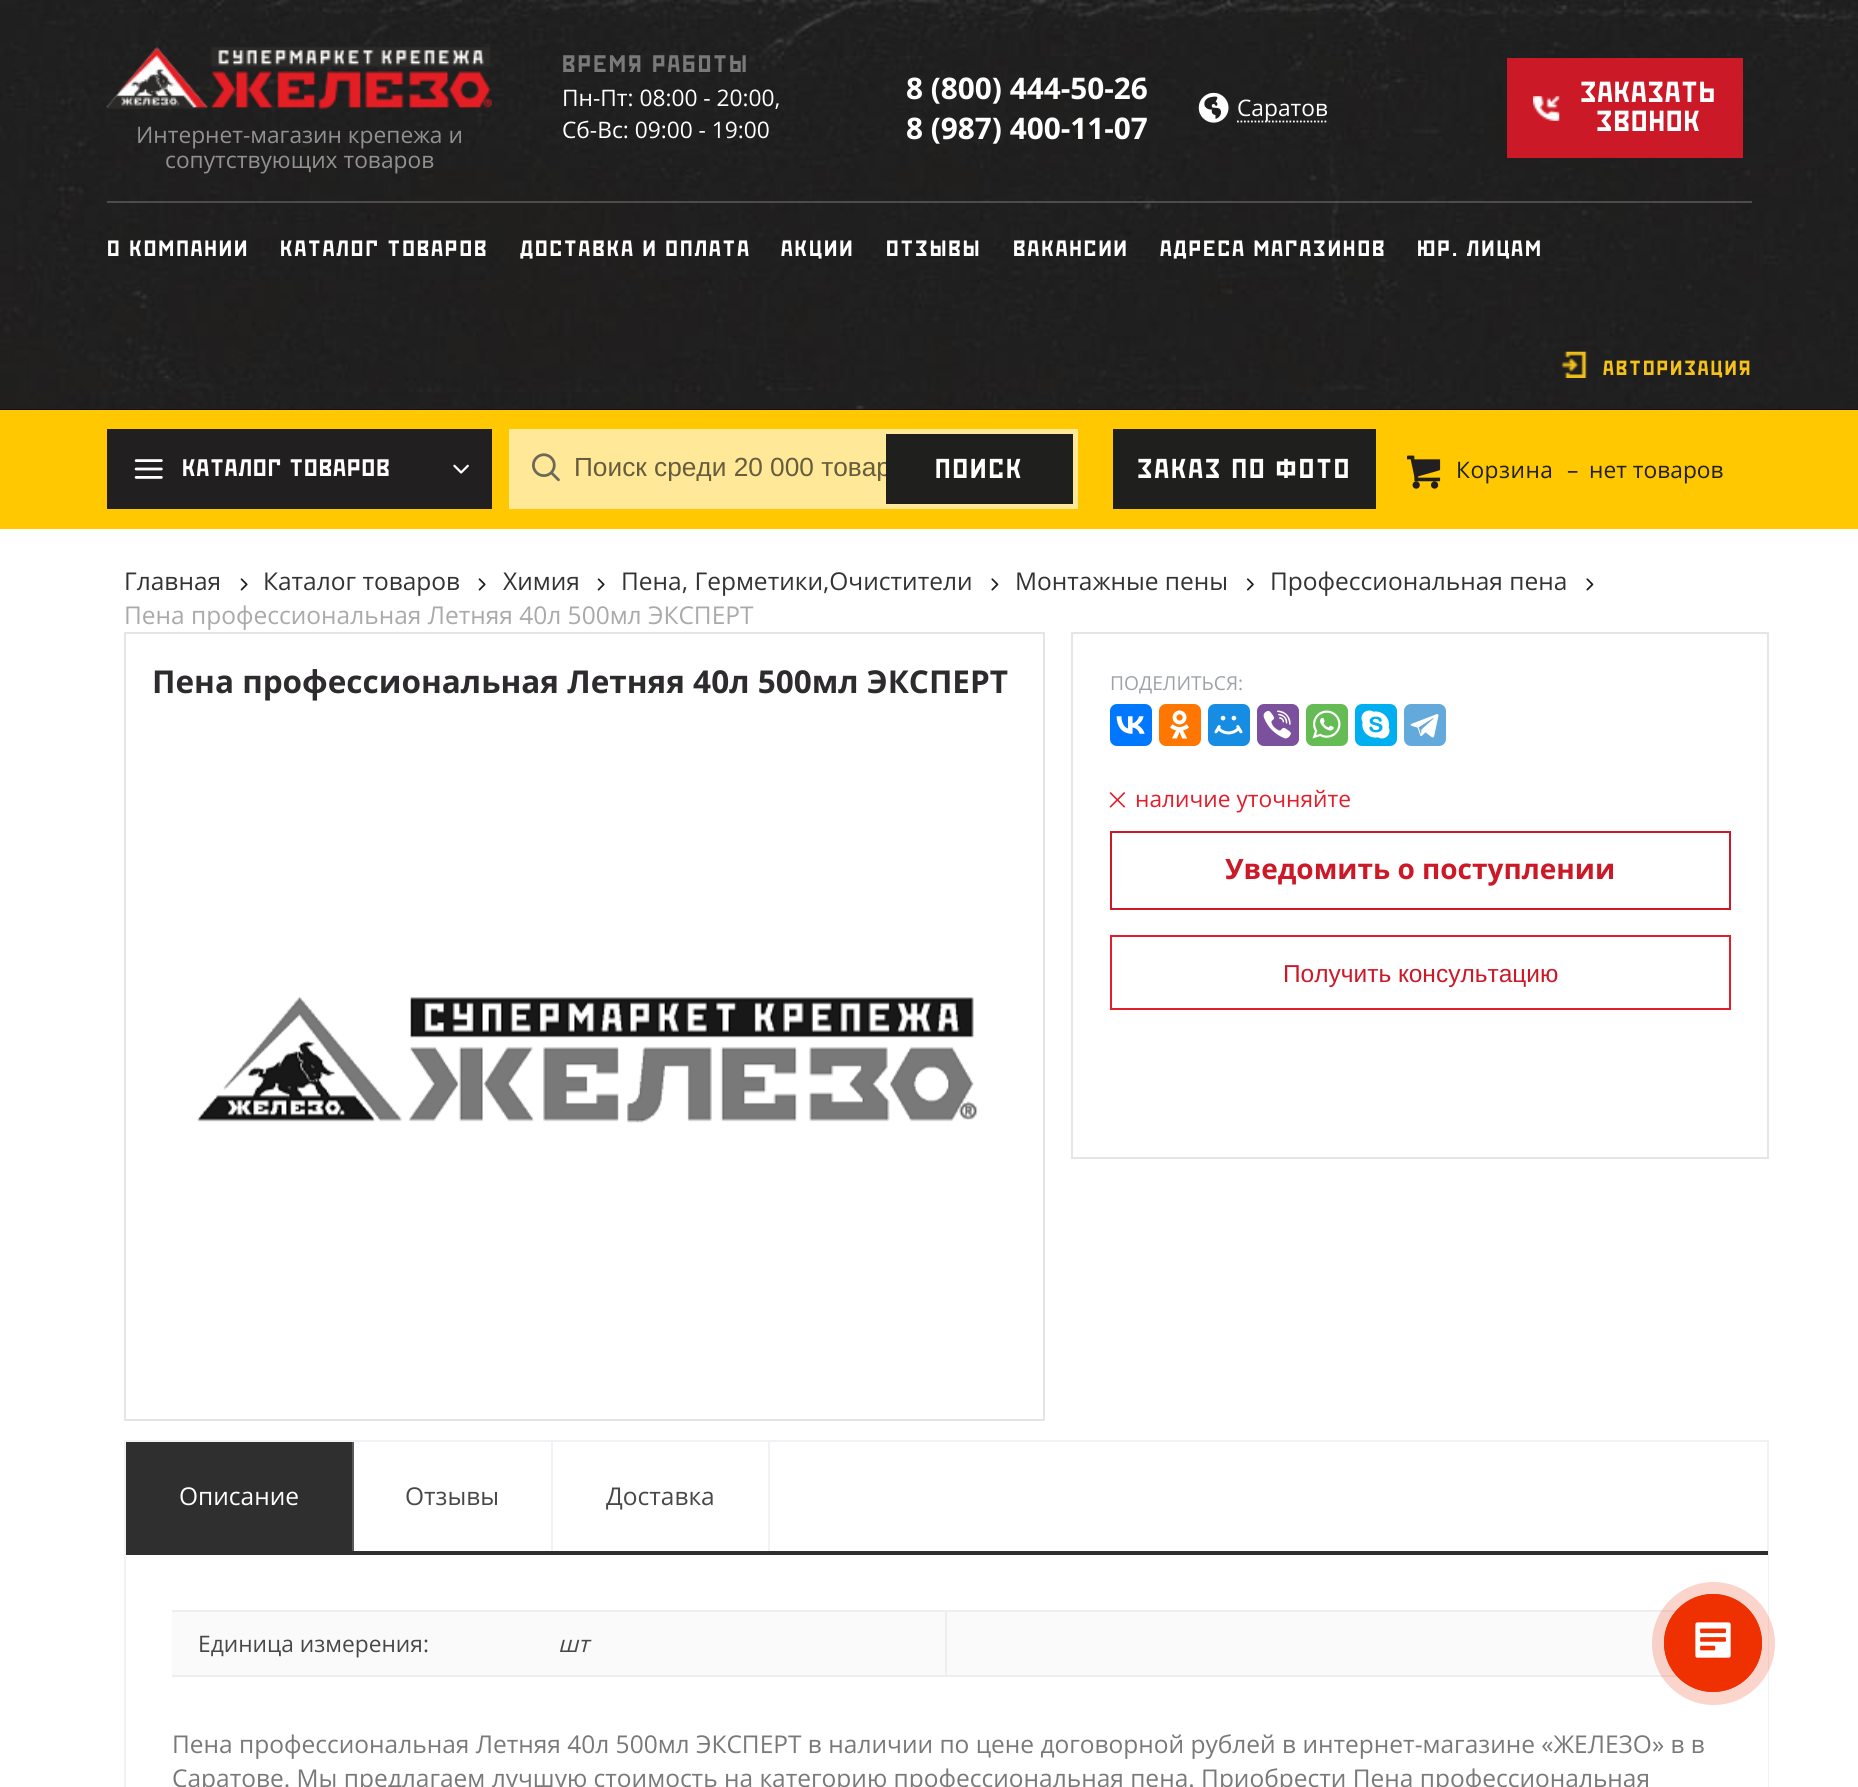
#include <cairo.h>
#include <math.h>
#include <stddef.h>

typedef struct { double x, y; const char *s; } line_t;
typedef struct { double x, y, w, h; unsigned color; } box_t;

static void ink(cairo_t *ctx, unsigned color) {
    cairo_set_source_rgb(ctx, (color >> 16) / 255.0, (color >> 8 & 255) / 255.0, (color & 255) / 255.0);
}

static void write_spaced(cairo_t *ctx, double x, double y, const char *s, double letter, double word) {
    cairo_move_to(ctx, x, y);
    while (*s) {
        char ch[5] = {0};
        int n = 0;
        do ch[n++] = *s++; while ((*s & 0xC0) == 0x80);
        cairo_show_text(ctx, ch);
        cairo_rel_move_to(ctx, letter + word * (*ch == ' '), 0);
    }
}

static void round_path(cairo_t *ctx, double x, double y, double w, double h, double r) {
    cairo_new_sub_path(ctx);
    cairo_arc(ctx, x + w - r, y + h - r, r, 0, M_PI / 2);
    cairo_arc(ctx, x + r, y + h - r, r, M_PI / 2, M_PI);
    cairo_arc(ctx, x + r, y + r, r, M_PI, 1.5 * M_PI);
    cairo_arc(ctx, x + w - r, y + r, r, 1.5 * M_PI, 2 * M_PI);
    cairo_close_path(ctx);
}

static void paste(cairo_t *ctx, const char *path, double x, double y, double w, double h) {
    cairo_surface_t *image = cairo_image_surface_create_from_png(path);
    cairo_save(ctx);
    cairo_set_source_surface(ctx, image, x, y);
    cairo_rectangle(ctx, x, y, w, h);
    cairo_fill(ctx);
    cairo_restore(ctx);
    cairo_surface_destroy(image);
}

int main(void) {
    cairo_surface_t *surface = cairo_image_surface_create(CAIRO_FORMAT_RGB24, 1858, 1787);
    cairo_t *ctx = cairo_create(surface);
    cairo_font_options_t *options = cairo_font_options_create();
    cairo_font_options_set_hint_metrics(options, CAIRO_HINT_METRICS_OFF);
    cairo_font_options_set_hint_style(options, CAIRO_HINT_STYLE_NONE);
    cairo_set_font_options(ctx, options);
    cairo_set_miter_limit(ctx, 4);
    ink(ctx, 0xFFFFFF);
    cairo_paint(ctx);
    ink(ctx, 0x000000);
    cairo_rectangle(ctx, 0, 409, 1858, 1);
    cairo_fill(ctx);
    paste(ctx, "media/1.png", 0, 0, 1858, 410);
    cairo_select_font_face(ctx, "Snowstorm", CAIRO_FONT_SLANT_NORMAL, CAIRO_FONT_WEIGHT_NORMAL);
    cairo_set_font_size(ctx, 24.5);
    ink(ctx, 0x797979);
    write_spaced(ctx, 562, 72, "ВРЕМЯ РАБОТЫ", 2.1, 0);
    cairo_select_font_face(ctx, "Open Sans", CAIRO_FONT_SLANT_NORMAL, CAIRO_FONT_WEIGHT_NORMAL);
    cairo_set_font_size(ctx, 22.75);
    ink(ctx, 0xFFFFFF);
    cairo_move_to(ctx, 562, 106);
    cairo_show_text(ctx, "Пн-Пт: 08:00 - 20:00,");
    cairo_move_to(ctx, 562, 138);
    cairo_show_text(ctx, "Сб-Вс: 09:00 - 19:00");
    cairo_select_font_face(ctx, "Open Sans", CAIRO_FONT_SLANT_NORMAL, CAIRO_FONT_WEIGHT_BOLD);
    cairo_set_font_size(ctx, 29.75);
    cairo_move_to(ctx, 906, 99);
    cairo_show_text(ctx, "8 (800) 444-50-26");
    cairo_move_to(ctx, 906, 139);
    cairo_show_text(ctx, "8 (987) 400-11-07");
    paste(ctx, "media/2.png", 1198, 92, 31, 31);
    cairo_new_path(ctx);
    cairo_move_to(ctx, 1237, 121.5);
    cairo_line_to(ctx, 1328, 121.5);
    cairo_set_line_width(ctx, 1.8);
    cairo_set_dash(ctx, (double[]){1.75, 1.75}, 2, 0);
    cairo_stroke(ctx);
    cairo_select_font_face(ctx, "Open Sans", CAIRO_FONT_SLANT_NORMAL, CAIRO_FONT_WEIGHT_NORMAL);
    cairo_set_font_size(ctx, 22.75);
    cairo_move_to(ctx, 1237, 116);
    cairo_show_text(ctx, "Саратов");
    ink(ctx, 0xCC1928);
    cairo_rectangle(ctx, 1507, 58, 236, 100);
    cairo_fill(ctx);
    paste(ctx, "media/3.png", 1533, 96, 27, 25);
    cairo_select_font_face(ctx, "Snowstorm", CAIRO_FONT_SLANT_NORMAL, CAIRO_FONT_WEIGHT_NORMAL);
    cairo_set_font_size(ctx, 29.75);
    ink(ctx, 0xFFFFFF);
    write_spaced(ctx, 1580, 102, "ЗАКАЗАТЬ", 1.1, 0);
    write_spaced(ctx, 1596, 131, "ЗВОНОК", 1.1, 0);
    paste(ctx, "media/4.png", 106, 46, 386, 64);
    cairo_select_font_face(ctx, "Open Sans", CAIRO_FONT_SLANT_NORMAL, CAIRO_FONT_WEIGHT_NORMAL);
    cairo_set_font_size(ctx, 22.75);
    ink(ctx, 0x939090);
    cairo_move_to(ctx, 136, 143);
    cairo_show_text(ctx, "Интернет-магазин крепежа и");
    cairo_move_to(ctx, 165, 168);
    cairo_show_text(ctx, "сопутствующих товаров");
    cairo_set_source_rgba(ctx, 1, 1, 1, 0.2);
    cairo_rectangle(ctx, 107, 201, 1645, 2);
    cairo_fill(ctx);
    cairo_select_font_face(ctx, "Snowstorm", CAIRO_FONT_SLANT_NORMAL, CAIRO_FONT_WEIGHT_NORMAL);
    ink(ctx, 0xFFFFFF);
    {
        static const line_t items[] = {
            {107, 256, "О КОМПАНИИ"},
            {280, 256, "КАТАЛОГ ТОВАРОВ"},
            {520, 256, "ДОСТАВКА И ОПЛАТА"},
            {781, 256, "АКЦИИ"},
            {886, 256, "ОТЗЫВЫ"},
            {1013, 256, "ВАКАНСИИ"},
            {1160, 256, "АДРЕСА МАГАЗИНОВ"},
            {1417, 256, "ЮР. ЛИЦАМ"},
        };
        for (size_t i = 0; i < sizeof items / sizeof *items; i++) {
            write_spaced(ctx, items[i].x, items[i].y, items[i].s, 2, 0);
        }
    }
    paste(ctx, "media/5.png", 1561, 351, 27, 27);
    cairo_set_font_size(ctx, 21);
    ink(ctx, 0xF7C218);
    write_spaced(ctx, 1603, 375, "АВТОРИЗАЦИЯ", 2, 0);
    ink(ctx, 0xFFC800);
    cairo_rectangle(ctx, 0, 410, 1858, 119);
    cairo_fill(ctx);
    ink(ctx, 0x211F20);
    cairo_rectangle(ctx, 107, 429, 385, 80);
    cairo_fill(ctx);
    paste(ctx, "media/6.png", 134, 459, 29, 20);
    cairo_set_font_size(ctx, 24.5);
    ink(ctx, 0xFFFFFF);
    write_spaced(ctx, 182, 476, "КАТАЛОГ ТОВАРОВ", 1.1, 0);
    paste(ctx, "media/7.png", 453, 464, 16, 10);
    ink(ctx, 0xFFE999);
    cairo_rectangle(ctx, 509, 429, 569, 80);
    cairo_fill(ctx);
    paste(ctx, "media/8.png", 532, 453, 28, 29);
    cairo_save(ctx);
    cairo_rectangle(ctx, 574, 452, 324, 29);
    cairo_clip(ctx);
    cairo_select_font_face(ctx, "Liberation Sans", CAIRO_FONT_SLANT_NORMAL, CAIRO_FONT_WEIGHT_NORMAL);
    cairo_set_font_size(ctx, 26.25);
    ink(ctx, 0x665D3D);
    cairo_move_to(ctx, 574, 476);
    cairo_show_text(ctx, "Поиск среди 20 000 товар");
    cairo_restore(ctx);
    ink(ctx, 0x1F1F1D);
    cairo_rectangle(ctx, 886, 434, 187, 70);
    cairo_fill(ctx);
    cairo_set_font_size(ctx, 28);
    ink(ctx, 0xFFFFFF);
    write_spaced(ctx, 935, 478, "ПОИСК", 2.1, 0);
    ink(ctx, 0x1F1F1D);
    cairo_rectangle(ctx, 1113, 429, 263, 80);
    cairo_fill(ctx);
    ink(ctx, 0xFFFFFF);
    write_spaced(ctx, 1137, 478, "ЗАКАЗ ПО ФОТО", 2.1, 0);
    paste(ctx, "media/9.png", 1407, 455, 34, 34);
    cairo_select_font_face(ctx, "Open Sans", CAIRO_FONT_SLANT_NORMAL, CAIRO_FONT_WEIGHT_NORMAL);
    cairo_set_font_size(ctx, 22.75);
    ink(ctx, 0x211F20);
    write_spaced(ctx, 1456, 478, "Корзина", 0.5, 0);
    cairo_move_to(ctx, 1567, 478);
    cairo_show_text(ctx, "–");
    cairo_move_to(ctx, 1589, 478);
    cairo_show_text(ctx, "нет товаров");
    cairo_set_font_size(ctx, 24.5);
    ink(ctx, 0x333333);
    cairo_move_to(ctx, 124, 590);
    cairo_show_text(ctx, "Главная");
    paste(ctx, "media/10.png", 240, 578, 8, 13);
    cairo_move_to(ctx, 263, 590);
    cairo_show_text(ctx, "Каталог товаров");
    paste(ctx, "media/10.png", 478, 578, 8, 13);
    cairo_move_to(ctx, 503, 590);
    cairo_show_text(ctx, "Химия");
    paste(ctx, "media/10.png", 597, 578, 8, 13);
    cairo_move_to(ctx, 621, 590);
    cairo_show_text(ctx, "Пена, Герметики,Очистители");
    paste(ctx, "media/11.png", 991, 578, 8, 13);
    cairo_move_to(ctx, 1015, 590);
    cairo_show_text(ctx, "Монтажные пены");
    paste(ctx, "media/12.png", 1246, 578, 8, 13);
    cairo_move_to(ctx, 1270, 590);
    cairo_show_text(ctx, "Профессиональная пена");
    paste(ctx, "media/11.png", 1586, 578, 8, 13);
    ink(ctx, 0xAAAAAA);
    cairo_move_to(ctx, 124, 624);
    cairo_show_text(ctx, "Пена профессиональная Летняя 40л 500мл ЭКСПЕРТ");
    cairo_rectangle(ctx, 125, 633, 919, 787);
    ink(ctx, 0xE4E5E6);
    cairo_set_line_width(ctx, 2);
    cairo_set_dash(ctx, NULL, 0, 0);
    cairo_stroke(ctx);
    cairo_select_font_face(ctx, "Open Sans", CAIRO_FONT_SLANT_NORMAL, CAIRO_FONT_WEIGHT_BOLD);
    cairo_set_font_size(ctx, 31.5);
    ink(ctx, 0x2D2B2E);
    cairo_move_to(ctx, 152, 693);
    cairo_show_text(ctx, "Пена профессиональная Летняя 40л 500мл ЭКСПЕРТ");
    paste(ctx, "media/13.png", 197, 997, 781, 126);
    cairo_rectangle(ctx, 1072, 633, 696, 525);
    ink(ctx, 0xE4E5E6);
    cairo_stroke(ctx);
    cairo_select_font_face(ctx, "Open Sans", CAIRO_FONT_SLANT_NORMAL, CAIRO_FONT_WEIGHT_NORMAL);
    cairo_set_font_size(ctx, 19.25);
    ink(ctx, 0x9EA3AA);
    cairo_move_to(ctx, 1110, 690);
    cairo_show_text(ctx, "ПОДЕЛИТЬСЯ:");
    ink(ctx, 0x0077FF);
    round_path(ctx, 1110, 704, 42, 42, 7);
    cairo_fill(ctx);
    paste(ctx, "media/14.png", 1116, 716, 29, 18);
    ink(ctx, 0xFF7700);
    round_path(ctx, 1159, 704, 42, 42, 7);
    cairo_fill(ctx);
    paste(ctx, "media/15.png", 1170, 710, 19, 29);
    ink(ctx, 0x168DE2);
    round_path(ctx, 1208, 704, 42, 42, 7);
    cairo_fill(ctx);
    paste(ctx, "media/16.png", 1214, 715, 29, 20);
    ink(ctx, 0x7B519D);
    round_path(ctx, 1257, 704, 42, 42, 7);
    cairo_fill(ctx);
    paste(ctx, "media/17.png", 1263, 710, 28, 29);
    ink(ctx, 0x65BC54);
    round_path(ctx, 1306, 704, 42, 42, 7);
    cairo_fill(ctx);
    paste(ctx, "media/18.png", 1312, 710, 29, 29);
    ink(ctx, 0x00AFF0);
    round_path(ctx, 1355, 704, 42, 42, 7);
    cairo_fill(ctx);
    paste(ctx, "media/19.png", 1361, 710, 29, 29);
    ink(ctx, 0x64A9DC);
    round_path(ctx, 1404, 704, 42, 42, 7);
    cairo_fill(ctx);
    paste(ctx, "media/20.png", 1410, 714, 29, 24);
    paste(ctx, "media/21.png", 1109, 792, 17, 16);
    cairo_set_font_size(ctx, 22.75);
    ink(ctx, 0xE11E2B);
    cairo_move_to(ctx, 1135, 807);
    cairo_show_text(ctx, "наличие уточняйте");
    cairo_rectangle(ctx, 1111, 832, 619, 77);
    ink(ctx, 0xCC1928);
    cairo_stroke(ctx);
    cairo_select_font_face(ctx, "Open Sans", CAIRO_FONT_SLANT_NORMAL, CAIRO_FONT_WEIGHT_BOLD);
    cairo_set_font_size(ctx, 28);
    cairo_move_to(ctx, 1225, 879);
    cairo_show_text(ctx, "Уведомить о поступлении");
    cairo_rectangle(ctx, 1111, 936, 619, 73);
    ink(ctx, 0xE11E2B);
    cairo_stroke(ctx);
    cairo_select_font_face(ctx, "Liberation Sans", CAIRO_FONT_SLANT_NORMAL, CAIRO_FONT_WEIGHT_NORMAL);
    cairo_set_font_size(ctx, 24.5);
    ink(ctx, 0xCC1928);
    cairo_move_to(ctx, 1283, 982);
    cairo_show_text(ctx, "Получить консультацию");
    cairo_rectangle(ctx, 125, 1441, 1643, 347);
    ink(ctx, 0xF1F2F5);
    cairo_stroke(ctx);
    {
        static const box_t items[] = {
            {126, 1551, 1642, 4, 0x2F2F2F},
            {126, 1442, 226, 109, 0x2F2F2F},
            {352, 1442, 2, 109, 0x595A5D},
        };
        for (size_t i = 0; i < sizeof items / sizeof *items; i++) {
            ink(ctx, items[i].color);
            cairo_rectangle(ctx, items[i].x, items[i].y, items[i].w, items[i].h);
            cairo_fill(ctx);
        }
    }
    cairo_select_font_face(ctx, "Open Sans", CAIRO_FONT_SLANT_NORMAL, CAIRO_FONT_WEIGHT_NORMAL);
    ink(ctx, 0xFFFFFF);
    cairo_move_to(ctx, 179, 1505);
    cairo_show_text(ctx, "Описание");
    ink(ctx, 0xF1F2F5);
    cairo_rectangle(ctx, 551, 1442, 2, 109);
    cairo_fill(ctx);
    ink(ctx, 0x484848);
    cairo_move_to(ctx, 405, 1505);
    cairo_show_text(ctx, "Отзывы");
    ink(ctx, 0xF1F2F5);
    cairo_rectangle(ctx, 768, 1442, 2, 109);
    cairo_fill(ctx);
    ink(ctx, 0x484848);
    cairo_move_to(ctx, 606, 1505);
    cairo_show_text(ctx, "Доставка");
    {
        static const box_t items[] = {
            {1767, 1555, 1, 232, 0xFFFFFF},
            {172, 1612, 1504, 63, 0xFAFAFA},
            {172, 1610, 1505, 2, 0xEEEEEE},
            {172, 1675, 1506, 2, 0xEEEEEE},
            {945, 1612, 2, 63, 0xEEEEEE},
        };
        for (size_t i = 0; i < sizeof items / sizeof *items; i++) {
            ink(ctx, items[i].color);
            cairo_rectangle(ctx, items[i].x, items[i].y, items[i].w, items[i].h);
            cairo_fill(ctx);
        }
    }
    cairo_set_font_size(ctx, 22.75);
    ink(ctx, 0x484848);
    cairo_move_to(ctx, 198, 1652);
    cairo_show_text(ctx, "Единица измерения:");
    cairo_select_font_face(ctx, "Open Sans", CAIRO_FONT_SLANT_ITALIC, CAIRO_FONT_WEIGHT_NORMAL);
    cairo_move_to(ctx, 558, 1652);
    cairo_show_text(ctx, "шт");
    cairo_select_font_face(ctx, "Open Sans", CAIRO_FONT_SLANT_NORMAL, CAIRO_FONT_WEIGHT_NORMAL);
    cairo_set_font_size(ctx, 24.5);
    ink(ctx, 0x797979);
    cairo_move_to(ctx, 172, 1753);
    cairo_show_text(ctx, "Пена профессиональная Летняя 40л 500мл ЭКСПЕРТ в наличии по цене договорной рублей в интернет-магазине «ЖЕЛЕЗО» в в");
    cairo_move_to(ctx, 172, 1787);
    cairo_show_text(ctx, "Саратове. Мы предлагаем лучшую стоимость на категорию профессиональная пена. Приобрести Пена профессиональная");
    cairo_set_source_rgba(ctx, 0.937, 0.188, 0, 0.2);
    cairo_new_path(ctx);
    cairo_arc(ctx, 1713.5, 1643.5, 61.5, 0, 2 * M_PI);
    cairo_fill(ctx);
    cairo_arc(ctx, 1713, 1643, 48.5, 0, 2 * M_PI);
    ink(ctx, 0xEF3000);
    cairo_set_line_width(ctx, 1);
    cairo_stroke(ctx);
    cairo_arc(ctx, 1713, 1643, 49, 0, 2 * M_PI);
    cairo_fill(ctx);
    paste(ctx, "media/22.png", 1695, 1622, 36, 36);
    cairo_surface_write_to_png(surface, "image.png");
    cairo_font_options_destroy(options);
    cairo_destroy(ctx);
    cairo_surface_destroy(surface);
    return 0;
}
